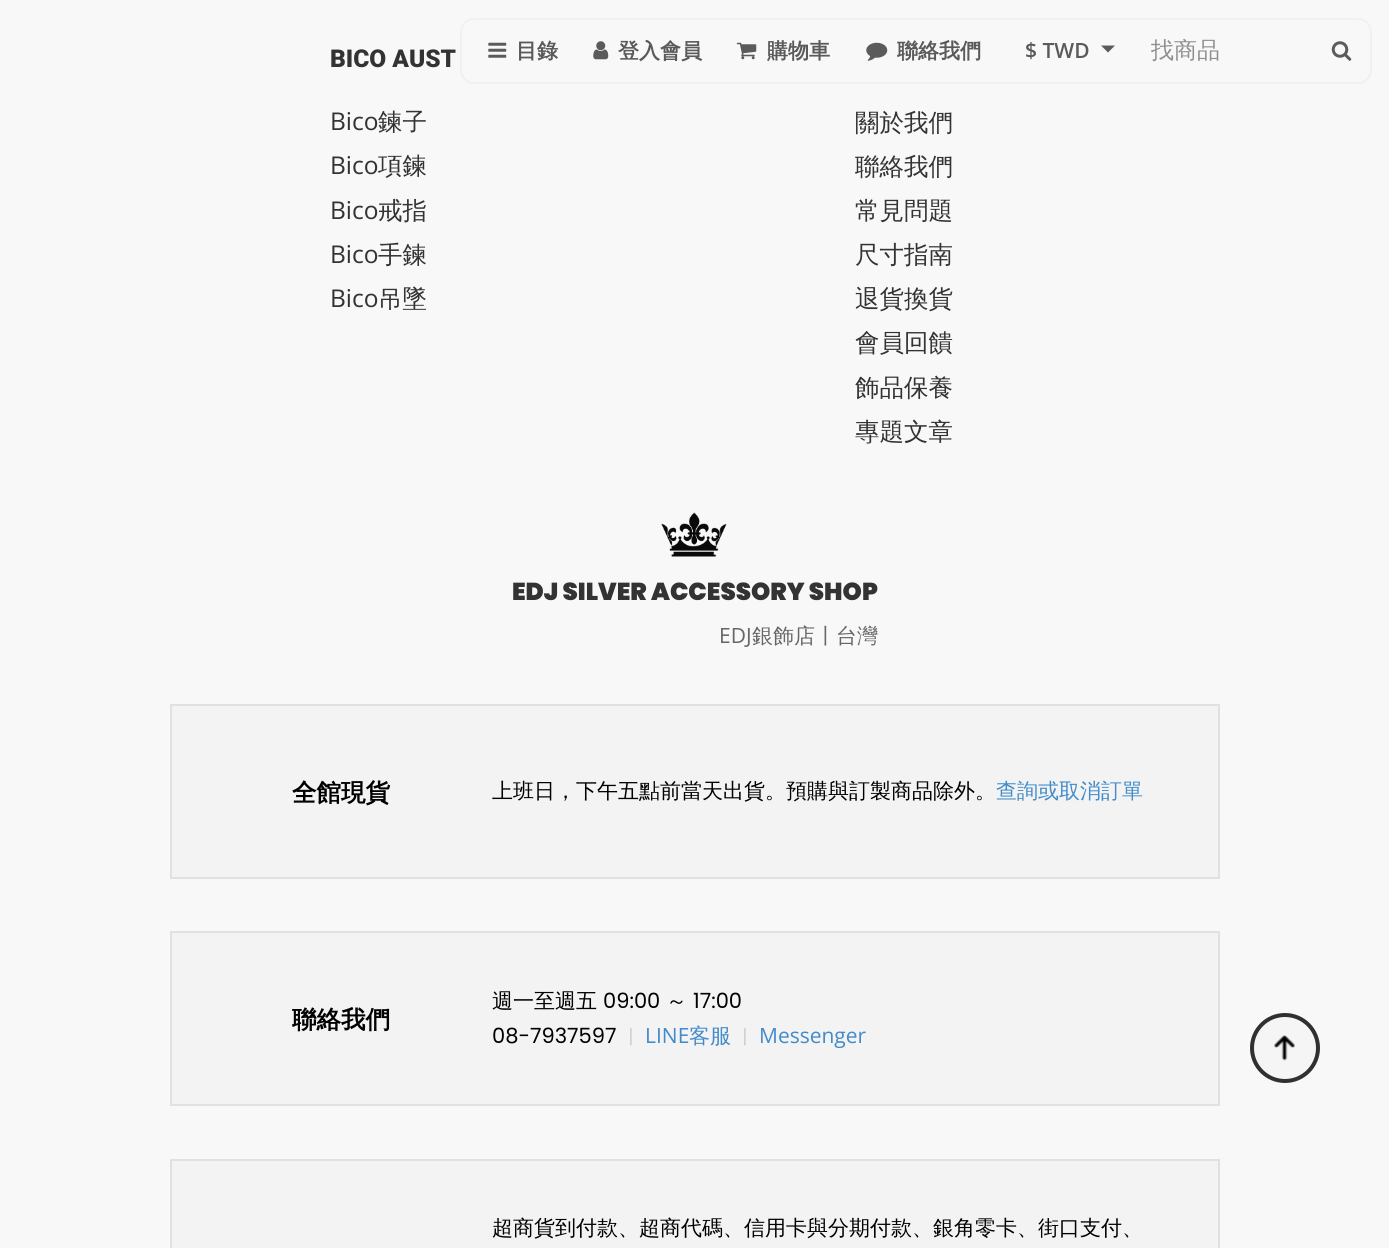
#include <cairo.h>
#include <math.h>
#include <stddef.h>

typedef struct { double x, y; const char *s; } line_t;

static void ink(cairo_t *ctx, unsigned color) {
    cairo_set_source_rgb(ctx, (color >> 16) / 255.0, (color >> 8 & 255) / 255.0, (color & 255) / 255.0);
}

static void round_path(cairo_t *ctx, double x, double y, double w, double h, double r) {
    cairo_new_sub_path(ctx);
    cairo_arc(ctx, x + w - r, y + h - r, r, 0, M_PI / 2);
    cairo_arc(ctx, x + r, y + h - r, r, M_PI / 2, M_PI);
    cairo_arc(ctx, x + r, y + r, r, M_PI, 1.5 * M_PI);
    cairo_arc(ctx, x + w - r, y + r, r, 1.5 * M_PI, 2 * M_PI);
    cairo_close_path(ctx);
}

static void paste(cairo_t *ctx, const char *path, double x, double y, double w, double h) {
    cairo_surface_t *image = cairo_image_surface_create_from_png(path);
    cairo_save(ctx);
    cairo_set_source_surface(ctx, image, x, y);
    cairo_rectangle(ctx, x, y, w, h);
    cairo_fill(ctx);
    cairo_restore(ctx);
    cairo_surface_destroy(image);
}

int main(void) {
    cairo_surface_t *surface = cairo_image_surface_create(CAIRO_FORMAT_RGB24, 1389, 1248);
    cairo_t *ctx = cairo_create(surface);
    cairo_font_options_t *options = cairo_font_options_create();
    cairo_font_options_set_hint_metrics(options, CAIRO_HINT_METRICS_OFF);
    cairo_font_options_set_hint_style(options, CAIRO_HINT_STYLE_NONE);
    cairo_set_font_options(ctx, options);
    cairo_set_miter_limit(ctx, 4);
    ink(ctx, 0xF8F8F8);
    cairo_paint(ctx);
    round_path(ctx, 461, 19, 910, 64, 13);
    ink(ctx, 0xF1F1F1);
    cairo_stroke(ctx);
    paste(ctx, "media/1.png", 488, 42, 19, 16);
    cairo_select_font_face(ctx, "WenQuanYi Zen Hei", CAIRO_FONT_SLANT_NORMAL, CAIRO_FONT_WEIGHT_BOLD);
    cairo_set_font_size(ctx, 21);
    ink(ctx, 0x5A5A5A);
    cairo_move_to(ctx, 516, 58);
    cairo_show_text(ctx, "目錄");
    paste(ctx, "media/2.png", 593, 41, 16, 19);
    cairo_move_to(ctx, 618, 58);
    cairo_show_text(ctx, "登入會員");
    paste(ctx, "media/3.png", 736, 42, 21, 18);
    cairo_move_to(ctx, 767, 58);
    cairo_show_text(ctx, "購物車");
    paste(ctx, "media/4.png", 866, 42, 22, 19);
    cairo_move_to(ctx, 897, 58);
    cairo_show_text(ctx, "聯絡我們");
    cairo_select_font_face(ctx, "Open Sans SemiBold", CAIRO_FONT_SLANT_NORMAL, CAIRO_FONT_WEIGHT_NORMAL);
    cairo_move_to(ctx, 1025, 58);
    cairo_show_text(ctx, "$ TWD");
    cairo_new_path(ctx);
    cairo_move_to(ctx, 1101, 45.5);
    cairo_line_to(ctx, 1115, 45.5);
    cairo_line_to(ctx, 1108, 52.5);
    cairo_close_path(ctx);
    cairo_fill(ctx);
    cairo_select_font_face(ctx, "WenQuanYi Zen Hei Medium", CAIRO_FONT_SLANT_NORMAL, CAIRO_FONT_WEIGHT_NORMAL);
    cairo_set_font_size(ctx, 23);
    ink(ctx, 0x8F8F8F);
    cairo_move_to(ctx, 1151, 58);
    cairo_show_text(ctx, "找商品");
    paste(ctx, "media/5.png", 1331, 41, 21, 20);
    cairo_select_font_face(ctx, "Roboto Black", CAIRO_FONT_SLANT_NORMAL, CAIRO_FONT_WEIGHT_NORMAL);
    cairo_set_font_size(ctx, 24.5);
    ink(ctx, 0x333333);
    cairo_move_to(ctx, 330, 67);
    cairo_show_text(ctx, "BICO AUST");
    cairo_select_font_face(ctx, "Open Sans", CAIRO_FONT_SLANT_NORMAL, CAIRO_FONT_WEIGHT_NORMAL);
    cairo_move_to(ctx, 330, 130);
    cairo_show_text(ctx, "Bico");
    cairo_select_font_face(ctx, "WenQuanYi Zen Hei Medium", CAIRO_FONT_SLANT_NORMAL, CAIRO_FONT_WEIGHT_NORMAL);
    cairo_move_to(ctx, 378, 130);
    cairo_show_text(ctx, "鍊子");
    cairo_select_font_face(ctx, "Open Sans", CAIRO_FONT_SLANT_NORMAL, CAIRO_FONT_WEIGHT_NORMAL);
    cairo_move_to(ctx, 330, 174);
    cairo_show_text(ctx, "Bico");
    cairo_select_font_face(ctx, "WenQuanYi Zen Hei Medium", CAIRO_FONT_SLANT_NORMAL, CAIRO_FONT_WEIGHT_NORMAL);
    cairo_move_to(ctx, 378, 174);
    cairo_show_text(ctx, "項鍊");
    cairo_select_font_face(ctx, "Open Sans", CAIRO_FONT_SLANT_NORMAL, CAIRO_FONT_WEIGHT_NORMAL);
    cairo_move_to(ctx, 330, 219);
    cairo_show_text(ctx, "Bico");
    cairo_select_font_face(ctx, "WenQuanYi Zen Hei Medium", CAIRO_FONT_SLANT_NORMAL, CAIRO_FONT_WEIGHT_NORMAL);
    cairo_move_to(ctx, 378, 219);
    cairo_show_text(ctx, "戒指");
    cairo_select_font_face(ctx, "Open Sans", CAIRO_FONT_SLANT_NORMAL, CAIRO_FONT_WEIGHT_NORMAL);
    cairo_move_to(ctx, 330, 263);
    cairo_show_text(ctx, "Bico");
    cairo_select_font_face(ctx, "WenQuanYi Zen Hei Medium", CAIRO_FONT_SLANT_NORMAL, CAIRO_FONT_WEIGHT_NORMAL);
    cairo_move_to(ctx, 378, 263);
    cairo_show_text(ctx, "手鍊");
    cairo_select_font_face(ctx, "Open Sans", CAIRO_FONT_SLANT_NORMAL, CAIRO_FONT_WEIGHT_NORMAL);
    cairo_move_to(ctx, 330, 307);
    cairo_show_text(ctx, "Bico");
    cairo_select_font_face(ctx, "WenQuanYi Zen Hei Medium", CAIRO_FONT_SLANT_NORMAL, CAIRO_FONT_WEIGHT_NORMAL);
    {
        static const line_t items[] = {
            {378, 307, "吊墜"},
            {855, 131, "關於我們"},
            {855, 175, "聯絡我們"},
            {855, 219, "常見問題"},
            {855, 263, "尺寸指南"},
            {855, 307, "退貨換貨"},
            {855, 351, "會員回饋"},
            {855, 396, "飾品保養"},
            {855, 440, "專題文章"},
        };
        for (size_t i = 0; i < sizeof items / sizeof *items; i++) {
            cairo_move_to(ctx, items[i].x, items[i].y);
            cairo_show_text(ctx, items[i].s);
        }
    }
    paste(ctx, "media/6.png", 661, 512, 66, 45);
    cairo_select_font_face(ctx, "Poppins Black", CAIRO_FONT_SLANT_NORMAL, CAIRO_FONT_WEIGHT_NORMAL);
    cairo_move_to(ctx, 512, 600);
    cairo_show_text(ctx, "EDJ SILVER ACCESSORY SHOP");
    cairo_select_font_face(ctx, "Open Sans", CAIRO_FONT_SLANT_NORMAL, CAIRO_FONT_WEIGHT_NORMAL);
    cairo_set_font_size(ctx, 21);
    ink(ctx, 0x666666);
    cairo_move_to(ctx, 719, 643);
    cairo_show_text(ctx, "EDJ");
    cairo_select_font_face(ctx, "WenQuanYi Zen Hei Medium", CAIRO_FONT_SLANT_NORMAL, CAIRO_FONT_WEIGHT_NORMAL);
    cairo_move_to(ctx, 752, 643);
    cairo_show_text(ctx, "銀飾店〡台灣");
    ink(ctx, 0xF3F3F3);
    cairo_rectangle(ctx, 171, 705, 1048, 173);
    cairo_fill_preserve(ctx);
    ink(ctx, 0xE1E1E1);
    cairo_stroke(ctx);
    cairo_select_font_face(ctx, "WenQuanYi Zen Hei", CAIRO_FONT_SLANT_NORMAL, CAIRO_FONT_WEIGHT_BOLD);
    cairo_set_font_size(ctx, 24.5);
    ink(ctx, 0x000000);
    cairo_move_to(ctx, 292, 801);
    cairo_show_text(ctx, "全館現貨");
    cairo_select_font_face(ctx, "WenQuanYi Zen Hei Medium", CAIRO_FONT_SLANT_NORMAL, CAIRO_FONT_WEIGHT_NORMAL);
    cairo_set_font_size(ctx, 21);
    cairo_move_to(ctx, 492, 798);
    cairo_show_text(ctx, "上班日，下午五點前當天出貨。預購與訂製商品除外。");
    ink(ctx, 0x428BCA);
    cairo_move_to(ctx, 996, 798);
    cairo_show_text(ctx, "查詢或取消訂單");
    ink(ctx, 0xF3F3F3);
    cairo_rectangle(ctx, 171, 932, 1048, 173);
    cairo_fill_preserve(ctx);
    ink(ctx, 0xE1E1E1);
    cairo_stroke(ctx);
    cairo_select_font_face(ctx, "WenQuanYi Zen Hei", CAIRO_FONT_SLANT_NORMAL, CAIRO_FONT_WEIGHT_BOLD);
    cairo_set_font_size(ctx, 24.5);
    ink(ctx, 0x000000);
    cairo_move_to(ctx, 292, 1028);
    cairo_show_text(ctx, "聯絡我們");
    cairo_select_font_face(ctx, "WenQuanYi Zen Hei Medium", CAIRO_FONT_SLANT_NORMAL, CAIRO_FONT_WEIGHT_NORMAL);
    cairo_set_font_size(ctx, 21);
    cairo_move_to(ctx, 492, 1008);
    cairo_show_text(ctx, "週一至週五");
    cairo_select_font_face(ctx, "Poppins", CAIRO_FONT_SLANT_NORMAL, CAIRO_FONT_WEIGHT_NORMAL);
    cairo_move_to(ctx, 603, 1008);
    cairo_show_text(ctx, "09:00");
    cairo_select_font_face(ctx, "WenQuanYi Zen Hei Medium", CAIRO_FONT_SLANT_NORMAL, CAIRO_FONT_WEIGHT_NORMAL);
    cairo_move_to(ctx, 666, 1008);
    cairo_show_text(ctx, "～");
    cairo_select_font_face(ctx, "Poppins", CAIRO_FONT_SLANT_NORMAL, CAIRO_FONT_WEIGHT_NORMAL);
    cairo_move_to(ctx, 693, 1008);
    cairo_show_text(ctx, "17:00");
    cairo_move_to(ctx, 492, 1043);
    cairo_show_text(ctx, "08-7937597");
    cairo_select_font_face(ctx, "WenQuanYi Zen Hei Medium", CAIRO_FONT_SLANT_NORMAL, CAIRO_FONT_WEIGHT_NORMAL);
    cairo_set_font_size(ctx, 18);
    ink(ctx, 0xC9C9C9);
    cairo_move_to(ctx, 622, 1043);
    cairo_show_text(ctx, "〡");
    cairo_select_font_face(ctx, "Open Sans", CAIRO_FONT_SLANT_NORMAL, CAIRO_FONT_WEIGHT_NORMAL);
    cairo_set_font_size(ctx, 21);
    ink(ctx, 0x428BCA);
    cairo_move_to(ctx, 645, 1043);
    cairo_show_text(ctx, "LINE");
    cairo_select_font_face(ctx, "WenQuanYi Zen Hei Medium", CAIRO_FONT_SLANT_NORMAL, CAIRO_FONT_WEIGHT_NORMAL);
    cairo_move_to(ctx, 689, 1043);
    cairo_show_text(ctx, "客服");
    cairo_set_font_size(ctx, 18);
    ink(ctx, 0xC9C9C9);
    cairo_move_to(ctx, 736, 1043);
    cairo_show_text(ctx, "〡");
    cairo_select_font_face(ctx, "Open Sans", CAIRO_FONT_SLANT_NORMAL, CAIRO_FONT_WEIGHT_NORMAL);
    cairo_set_font_size(ctx, 21);
    ink(ctx, 0x428BCA);
    cairo_move_to(ctx, 759, 1043);
    cairo_show_text(ctx, "Messenger");
    ink(ctx, 0xF3F3F3);
    cairo_rectangle(ctx, 171, 1160, 1048, 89);
    cairo_fill_preserve(ctx);
    ink(ctx, 0xE1E1E1);
    cairo_stroke(ctx);
    cairo_select_font_face(ctx, "WenQuanYi Zen Hei Medium", CAIRO_FONT_SLANT_NORMAL, CAIRO_FONT_WEIGHT_NORMAL);
    ink(ctx, 0x000000);
    cairo_move_to(ctx, 492, 1235);
    cairo_show_text(ctx, "超商貨到付款、超商代碼、信用卡與分期付款、銀角零卡、街口支付、");
    ink(ctx, 0xF5F5F5);
    cairo_new_path(ctx);
    cairo_arc(ctx, 1285, 1048, 35, 0, 2 * M_PI);
    cairo_fill(ctx);
    paste(ctx, "media/7.png", 1274, 1035, 21, 26);
    cairo_arc(ctx, 1285, 1048, 33, 0, 2 * M_PI);
    ink(ctx, 0x303030);
    cairo_set_line_width(ctx, 4);
    cairo_stroke(ctx);
    cairo_surface_write_to_png(surface, "image.png");
    cairo_font_options_destroy(options);
    cairo_destroy(ctx);
    cairo_surface_destroy(surface);
    return 0;
}
